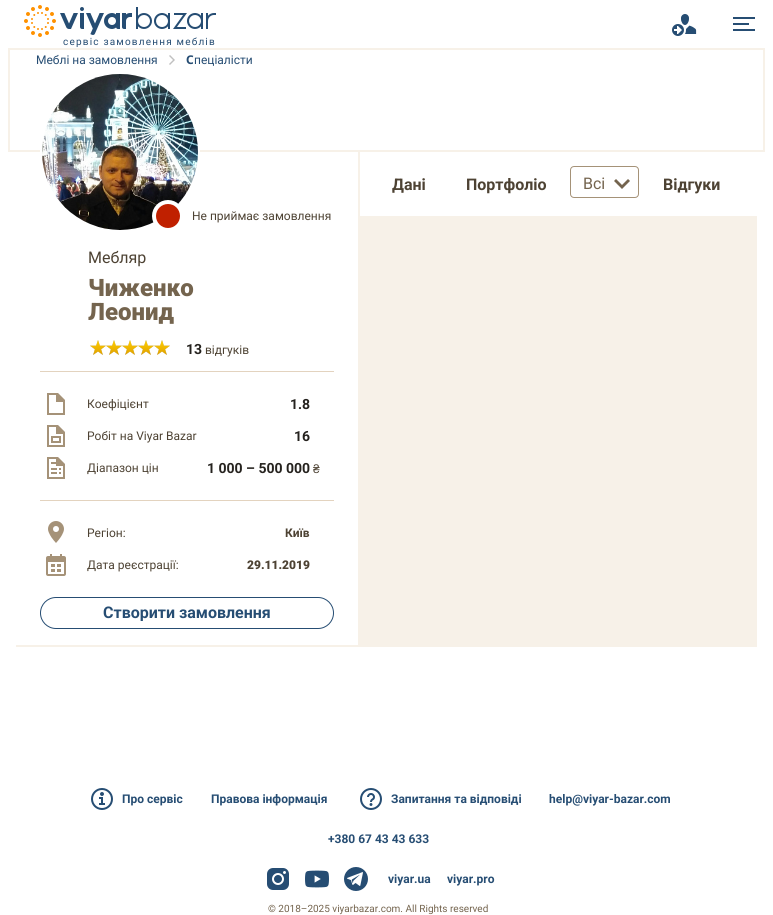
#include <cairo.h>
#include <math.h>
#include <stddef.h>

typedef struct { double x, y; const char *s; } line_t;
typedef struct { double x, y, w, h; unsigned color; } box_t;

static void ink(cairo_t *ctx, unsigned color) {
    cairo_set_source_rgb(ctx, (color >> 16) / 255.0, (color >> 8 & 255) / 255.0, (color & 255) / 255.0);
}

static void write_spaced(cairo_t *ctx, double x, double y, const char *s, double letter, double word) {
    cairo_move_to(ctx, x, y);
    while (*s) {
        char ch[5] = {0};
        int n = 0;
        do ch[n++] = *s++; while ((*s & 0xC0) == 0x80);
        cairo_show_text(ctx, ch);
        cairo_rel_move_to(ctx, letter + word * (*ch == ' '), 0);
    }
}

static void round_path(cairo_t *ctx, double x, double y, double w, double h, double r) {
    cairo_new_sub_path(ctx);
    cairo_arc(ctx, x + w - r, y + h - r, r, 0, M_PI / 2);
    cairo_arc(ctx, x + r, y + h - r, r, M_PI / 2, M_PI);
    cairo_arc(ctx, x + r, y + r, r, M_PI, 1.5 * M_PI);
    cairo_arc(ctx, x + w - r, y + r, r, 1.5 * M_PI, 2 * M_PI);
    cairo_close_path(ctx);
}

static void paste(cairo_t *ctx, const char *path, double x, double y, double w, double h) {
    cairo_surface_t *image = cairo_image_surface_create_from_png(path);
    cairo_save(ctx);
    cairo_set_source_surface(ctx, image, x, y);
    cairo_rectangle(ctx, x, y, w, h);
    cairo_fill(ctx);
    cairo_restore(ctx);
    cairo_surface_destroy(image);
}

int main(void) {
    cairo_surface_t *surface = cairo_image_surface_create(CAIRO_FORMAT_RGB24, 773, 915);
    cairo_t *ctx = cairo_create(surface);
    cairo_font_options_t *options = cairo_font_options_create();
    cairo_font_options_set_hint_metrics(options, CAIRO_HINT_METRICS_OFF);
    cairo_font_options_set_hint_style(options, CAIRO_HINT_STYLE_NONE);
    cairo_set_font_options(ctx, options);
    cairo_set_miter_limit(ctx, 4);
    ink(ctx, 0xFFFFFF);
    cairo_paint(ctx);
    paste(ctx, "media/1.png", 672, 14, 25, 22);
    {
        static const box_t items[] = {
            {733, 17, 22, 2, 0x264D73},
            {733, 23, 16, 2, 0x264D73},
            {733, 29, 22, 2, 0x264D73},
        };
        for (size_t i = 0; i < sizeof items / sizeof *items; i++) {
            ink(ctx, items[i].color);
            cairo_rectangle(ctx, items[i].x, items[i].y, items[i].w, items[i].h);
            cairo_fill(ctx);
        }
    }
    paste(ctx, "media/2.png", 24, 5, 192, 32);
    cairo_select_font_face(ctx, "Roboto", CAIRO_FONT_SLANT_NORMAL, CAIRO_FONT_WEIGHT_NORMAL);
    cairo_set_font_size(ctx, 10);
    write_spaced(ctx, 63, 45, "сервіс замовлення меблів", 1.2, 0);
    cairo_rectangle(ctx, 9, 49, 755, 102);
    ink(ctx, 0xF7F1E8);
    cairo_stroke(ctx);
    cairo_set_font_size(ctx, 12);
    ink(ctx, 0x264D73);
    cairo_move_to(ctx, 36, 64);
    cairo_show_text(ctx, "Меблі на замовлення");
    paste(ctx, "media/3.png", 169, 55, 6, 10);
    cairo_select_font_face(ctx, "Noto Sans", CAIRO_FONT_SLANT_NORMAL, CAIRO_FONT_WEIGHT_BOLD);
    cairo_move_to(ctx, 186, 64);
    cairo_show_text(ctx, "С");
    cairo_select_font_face(ctx, "Roboto", CAIRO_FONT_SLANT_NORMAL, CAIRO_FONT_WEIGHT_NORMAL);
    cairo_move_to(ctx, 194, 64);
    cairo_show_text(ctx, "пеціалісти");
    ink(ctx, 0xF7F1E8);
    cairo_rectangle(ctx, 360, 216, 397, 431);
    cairo_fill(ctx);
    cairo_select_font_face(ctx, "Roboto", CAIRO_FONT_SLANT_NORMAL, CAIRO_FONT_WEIGHT_BOLD);
    cairo_set_font_size(ctx, 16);
    ink(ctx, 0x4D4233);
    cairo_move_to(ctx, 392, 190);
    cairo_show_text(ctx, "Дані");
    cairo_move_to(ctx, 466, 190);
    cairo_show_text(ctx, "Портфоліо");
    round_path(ctx, 570.5, 166.5, 68, 31, 3.5);
    ink(ctx, 0xA59278);
    cairo_set_line_width(ctx, 1);
    cairo_stroke(ctx);
    cairo_select_font_face(ctx, "Roboto", CAIRO_FONT_SLANT_NORMAL, CAIRO_FONT_WEIGHT_NORMAL);
    ink(ctx, 0x74644E);
    cairo_move_to(ctx, 583, 189);
    cairo_show_text(ctx, "Всі");
    paste(ctx, "media/4.png", 614, 179, 16, 10);
    cairo_select_font_face(ctx, "Roboto", CAIRO_FONT_SLANT_NORMAL, CAIRO_FONT_WEIGHT_BOLD);
    ink(ctx, 0x4D4233);
    cairo_move_to(ctx, 663, 190);
    cairo_show_text(ctx, "Відгуки");
    ink(ctx, 0xF7F1E8);
    cairo_rectangle(ctx, 358, 152, 2, 495);
    cairo_fill(ctx);
    cairo_rectangle(ctx, 16, 645, 344, 2);
    cairo_fill(ctx);
    cairo_arc(ctx, 120, 152, 79, 0, 2 * M_PI);
    ink(ctx, 0xFFFFFF);
    cairo_set_line_width(ctx, 2);
    cairo_stroke(ctx);
    paste(ctx, "media/5.png", 42, 74, 156, 156);
    ink(ctx, 0xC02000);
    cairo_arc(ctx, 168, 216, 14, 0, 2 * M_PI);
    cairo_fill_preserve(ctx);
    ink(ctx, 0xFFFFFF);
    cairo_set_line_width(ctx, 4);
    cairo_stroke(ctx);
    cairo_select_font_face(ctx, "Roboto", CAIRO_FONT_SLANT_NORMAL, CAIRO_FONT_WEIGHT_NORMAL);
    cairo_set_font_size(ctx, 12);
    ink(ctx, 0x4D4233);
    cairo_move_to(ctx, 192, 220);
    cairo_show_text(ctx, "Не приймає замовлення");
    ink(ctx, 0xE3D3BF);
    cairo_rectangle(ctx, 40, 371, 294, 1);
    cairo_fill(ctx);
    cairo_set_font_size(ctx, 16);
    ink(ctx, 0x4D4233);
    cairo_move_to(ctx, 88, 263);
    cairo_show_text(ctx, "Мебляр");
    cairo_select_font_face(ctx, "Roboto Black", CAIRO_FONT_SLANT_NORMAL, CAIRO_FONT_WEIGHT_NORMAL);
    cairo_set_font_size(ctx, 24);
    ink(ctx, 0x74644E);
    cairo_move_to(ctx, 88, 296);
    cairo_show_text(ctx, "Чиженко");
    cairo_move_to(ctx, 88, 320);
    cairo_show_text(ctx, "Леонид");
    paste(ctx, "media/6.png", 90, 340, 80, 15);
    paste(ctx, "media/7.png", 154, 340, 16, 15);
    paste(ctx, "media/7.png", 138, 340, 16, 15);
    paste(ctx, "media/7.png", 122, 340, 16, 15);
    paste(ctx, "media/7.png", 106, 340, 16, 15);
    paste(ctx, "media/7.png", 90, 340, 16, 15);
    cairo_select_font_face(ctx, "Roboto", CAIRO_FONT_SLANT_NORMAL, CAIRO_FONT_WEIGHT_BOLD);
    cairo_set_font_size(ctx, 14);
    ink(ctx, 0x25221E);
    cairo_move_to(ctx, 186, 354);
    cairo_show_text(ctx, "13");
    cairo_select_font_face(ctx, "Roboto", CAIRO_FONT_SLANT_NORMAL, CAIRO_FONT_WEIGHT_NORMAL);
    cairo_set_font_size(ctx, 12);
    ink(ctx, 0x4D4233);
    cairo_move_to(ctx, 205, 354);
    cairo_show_text(ctx, "відгуків");
    ink(ctx, 0xE3D3BF);
    cairo_rectangle(ctx, 40, 500, 294, 1);
    cairo_fill(ctx);
    paste(ctx, "media/8.png", 47, 393, 18, 22);
    ink(ctx, 0x4D4233);
    cairo_move_to(ctx, 87, 408);
    cairo_show_text(ctx, "Коефіцієнт");
    cairo_select_font_face(ctx, "Roboto", CAIRO_FONT_SLANT_NORMAL, CAIRO_FONT_WEIGHT_BOLD);
    cairo_set_font_size(ctx, 14);
    ink(ctx, 0x25221E);
    cairo_move_to(ctx, 290, 409);
    cairo_show_text(ctx, "1.8");
    paste(ctx, "media/9.png", 47, 425, 18, 22);
    cairo_select_font_face(ctx, "Roboto", CAIRO_FONT_SLANT_NORMAL, CAIRO_FONT_WEIGHT_NORMAL);
    cairo_set_font_size(ctx, 12);
    ink(ctx, 0x4D4233);
    cairo_move_to(ctx, 87, 440);
    cairo_show_text(ctx, "Робіт на Viyar Bazar");
    cairo_select_font_face(ctx, "Roboto", CAIRO_FONT_SLANT_NORMAL, CAIRO_FONT_WEIGHT_BOLD);
    cairo_set_font_size(ctx, 14);
    ink(ctx, 0x25221E);
    cairo_move_to(ctx, 294, 441);
    cairo_show_text(ctx, "16");
    paste(ctx, "media/10.png", 47, 457, 18, 22);
    cairo_select_font_face(ctx, "Roboto", CAIRO_FONT_SLANT_NORMAL, CAIRO_FONT_WEIGHT_NORMAL);
    cairo_set_font_size(ctx, 12);
    ink(ctx, 0x4D4233);
    cairo_move_to(ctx, 87, 472);
    cairo_show_text(ctx, "Діапазон цін");
    cairo_select_font_face(ctx, "Roboto", CAIRO_FONT_SLANT_NORMAL, CAIRO_FONT_WEIGHT_BOLD);
    cairo_set_font_size(ctx, 14);
    ink(ctx, 0x25221E);
    cairo_move_to(ctx, 207, 473);
    cairo_show_text(ctx, "1 000 – 500 000");
    cairo_select_font_face(ctx, "Liberation Sans", CAIRO_FONT_SLANT_NORMAL, CAIRO_FONT_WEIGHT_NORMAL);
    cairo_set_font_size(ctx, 12);
    ink(ctx, 0x4D4233);
    cairo_move_to(ctx, 313, 473);
    cairo_show_text(ctx, "₴");
    paste(ctx, "media/11.png", 48, 521, 16, 22);
    cairo_select_font_face(ctx, "Roboto", CAIRO_FONT_SLANT_NORMAL, CAIRO_FONT_WEIGHT_NORMAL);
    cairo_move_to(ctx, 87, 537);
    cairo_show_text(ctx, "Регіон:");
    cairo_select_font_face(ctx, "Roboto", CAIRO_FONT_SLANT_NORMAL, CAIRO_FONT_WEIGHT_BOLD);
    cairo_move_to(ctx, 285, 537);
    cairo_show_text(ctx, "Київ");
    paste(ctx, "media/12.png", 46, 554, 20, 22);
    cairo_select_font_face(ctx, "Roboto", CAIRO_FONT_SLANT_NORMAL, CAIRO_FONT_WEIGHT_NORMAL);
    cairo_move_to(ctx, 87, 569);
    cairo_show_text(ctx, "Дата реєстрації:");
    cairo_select_font_face(ctx, "Roboto Black", CAIRO_FONT_SLANT_NORMAL, CAIRO_FONT_WEIGHT_NORMAL);
    cairo_move_to(ctx, 247, 569);
    cairo_show_text(ctx, "29.11.2019");
    round_path(ctx, 40.5, 597.5, 293, 31, 15.5);
    ink(ctx, 0x264D73);
    cairo_set_line_width(ctx, 1);
    cairo_stroke(ctx);
    cairo_save(ctx);
    cairo_rectangle(ctx, 103, 605, 168, 16);
    cairo_clip(ctx);
    cairo_select_font_face(ctx, "Roboto", CAIRO_FONT_SLANT_NORMAL, CAIRO_FONT_WEIGHT_BOLD);
    cairo_set_font_size(ctx, 16);
    cairo_move_to(ctx, 103, 618);
    cairo_show_text(ctx, "Створити замовлення");
    cairo_restore(ctx);
    paste(ctx, "media/13.png", 91, 788, 22, 22);
    cairo_select_font_face(ctx, "Roboto", CAIRO_FONT_SLANT_NORMAL, CAIRO_FONT_WEIGHT_BOLD);
    cairo_move_to(ctx, 122, 803);
    cairo_show_text(ctx, "Про сервіс");
    cairo_move_to(ctx, 211, 803);
    cairo_show_text(ctx, "Правова інформація");
    paste(ctx, "media/14.png", 360, 788, 22, 22);
    {
        static const line_t items[] = {
            {391, 803, "Запитання та відповіді"},
            {549, 803, "help@viyar-bazar.com"},
            {328, 843, "+380 67 43 43 633"},
        };
        for (size_t i = 0; i < sizeof items / sizeof *items; i++) {
            cairo_move_to(ctx, items[i].x, items[i].y);
            cairo_show_text(ctx, items[i].s);
        }
    }
    paste(ctx, "media/15.png", 267, 868, 22, 22);
    paste(ctx, "media/16.png", 305, 870, 24, 18);
    paste(ctx, "media/17.png", 344, 867, 24, 24);
    cairo_move_to(ctx, 388, 883);
    cairo_show_text(ctx, "viyar.ua");
    cairo_move_to(ctx, 447, 883);
    cairo_show_text(ctx, "viyar.pro");
    cairo_select_font_face(ctx, "Roboto", CAIRO_FONT_SLANT_NORMAL, CAIRO_FONT_WEIGHT_NORMAL);
    cairo_set_font_size(ctx, 10);
    ink(ctx, 0x74644E);
    cairo_move_to(ctx, 268, 912);
    cairo_show_text(ctx, "© 2018–2025 viyarbazar.com. All Rights reserved");
    cairo_surface_write_to_png(surface, "image.png");
    cairo_font_options_destroy(options);
    cairo_destroy(ctx);
    cairo_surface_destroy(surface);
    return 0;
}
